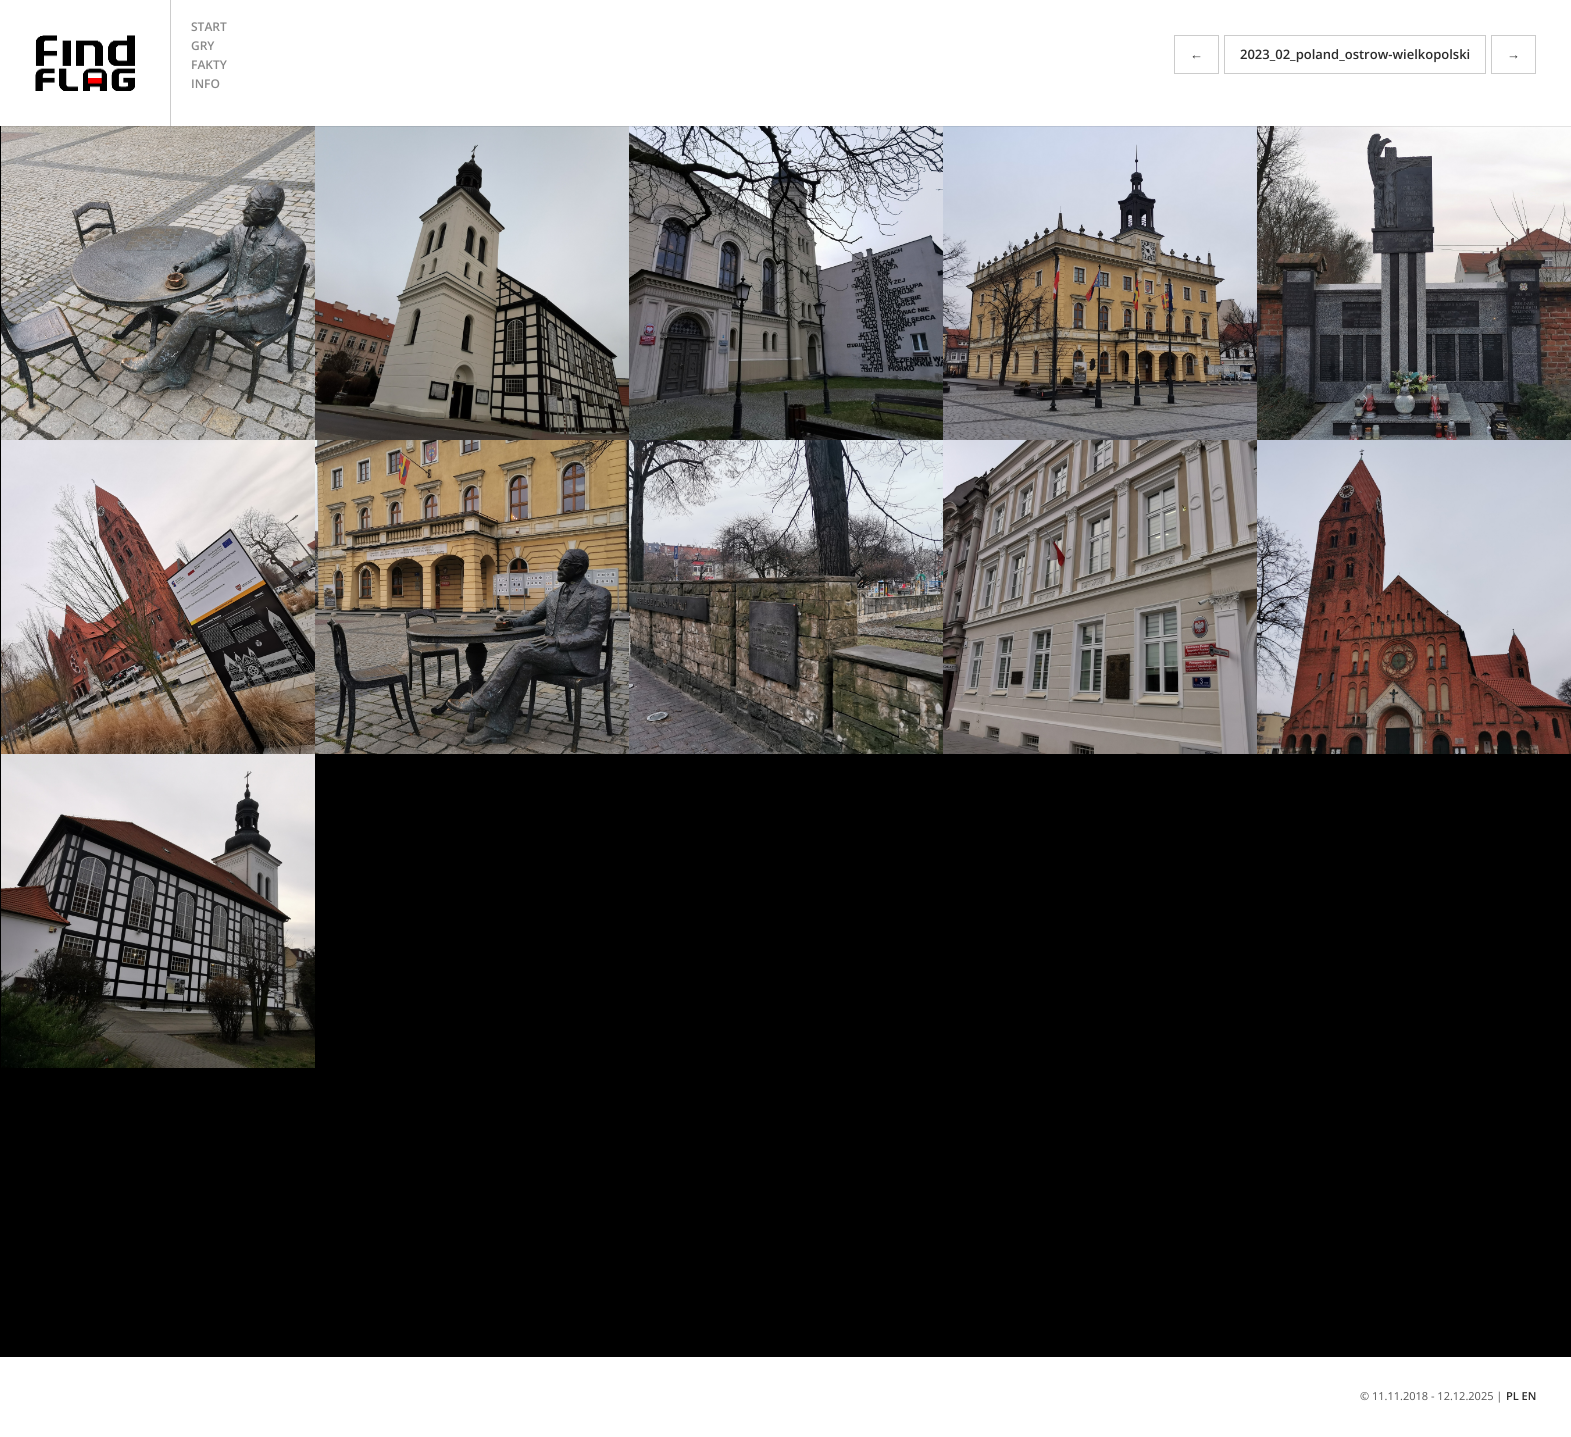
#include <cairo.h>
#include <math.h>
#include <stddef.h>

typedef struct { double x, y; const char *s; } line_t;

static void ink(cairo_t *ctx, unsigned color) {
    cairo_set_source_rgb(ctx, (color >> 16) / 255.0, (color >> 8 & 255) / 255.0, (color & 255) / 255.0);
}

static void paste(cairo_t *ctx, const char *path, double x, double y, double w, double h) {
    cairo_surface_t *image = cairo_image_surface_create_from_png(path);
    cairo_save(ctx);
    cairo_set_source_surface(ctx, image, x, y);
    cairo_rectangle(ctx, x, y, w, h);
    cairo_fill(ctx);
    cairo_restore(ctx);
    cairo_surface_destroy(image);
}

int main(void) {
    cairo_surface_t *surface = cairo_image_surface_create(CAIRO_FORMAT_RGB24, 1571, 1437);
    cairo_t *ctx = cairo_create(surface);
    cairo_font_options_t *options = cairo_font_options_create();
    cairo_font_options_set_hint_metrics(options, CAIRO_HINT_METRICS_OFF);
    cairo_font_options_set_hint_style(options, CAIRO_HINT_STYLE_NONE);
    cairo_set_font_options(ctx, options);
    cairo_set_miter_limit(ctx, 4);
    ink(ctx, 0x000000);
    cairo_paint(ctx);
    paste(ctx, "media/2.png", 1, 126, 314, 314);
    paste(ctx, "media/3.png", 315, 126, 314, 314);
    paste(ctx, "media/4.png", 629, 126, 314, 314);
    paste(ctx, "media/5.png", 943, 126, 314, 314);
    paste(ctx, "media/6.png", 1257, 126, 314, 314);
    cairo_set_source_rgba(ctx, 0, 0, 0, 0.1);
    cairo_rectangle(ctx, 0, 126, 1571, 1);
    cairo_fill(ctx);
    ink(ctx, 0xFFFFFF);
    cairo_rectangle(ctx, 0, 0, 1571, 126);
    cairo_fill(ctx);
    ink(ctx, 0xCCCCCC);
    cairo_rectangle(ctx, 170, 0, 1, 126);
    cairo_fill(ctx);
    paste(ctx, "media/1.png", 35, 35, 100, 56);
    cairo_select_font_face(ctx, "Open Sans SemiBold", CAIRO_FONT_SLANT_NORMAL, CAIRO_FONT_WEIGHT_NORMAL);
    cairo_set_font_size(ctx, 12);
    ink(ctx, 0x888888);
    {
        static const line_t items[] = {
            {191, 31, "START"},
            {191, 50, "GRY"},
            {191, 69, "FAKTY"},
            {191, 88, "INFO"},
        };
        for (size_t i = 0; i < sizeof items / sizeof *items; i++) {
            cairo_move_to(ctx, items[i].x, items[i].y);
            cairo_show_text(ctx, items[i].s);
        }
    }
    cairo_rectangle(ctx, 1174.5, 35.5, 44, 38);
    ink(ctx, 0xCCCCCC);
    cairo_set_line_width(ctx, 1);
    cairo_stroke(ctx);
    cairo_select_font_face(ctx, "Liberation Sans", CAIRO_FONT_SLANT_NORMAL, CAIRO_FONT_WEIGHT_NORMAL);
    cairo_set_font_size(ctx, 13);
    ink(ctx, 0x2B2B2B);
    cairo_move_to(ctx, 1190, 59);
    cairo_show_text(ctx, "←");
    cairo_rectangle(ctx, 1224.5, 35.5, 261, 38);
    ink(ctx, 0xCCCCCC);
    cairo_stroke(ctx);
    cairo_select_font_face(ctx, "Open Sans SemiBold", CAIRO_FONT_SLANT_NORMAL, CAIRO_FONT_WEIGHT_NORMAL);
    ink(ctx, 0x2B2B2B);
    cairo_move_to(ctx, 1240, 59);
    cairo_show_text(ctx, "2023_02_poland_ostrow-wielkopolski");
    cairo_rectangle(ctx, 1491.5, 35.5, 44, 38);
    ink(ctx, 0xCCCCCC);
    cairo_stroke(ctx);
    cairo_select_font_face(ctx, "Liberation Sans", CAIRO_FONT_SLANT_NORMAL, CAIRO_FONT_WEIGHT_NORMAL);
    ink(ctx, 0x2B2B2B);
    cairo_move_to(ctx, 1507, 59);
    cairo_show_text(ctx, "→");
    paste(ctx, "media/7.png", 1, 440, 314, 314);
    paste(ctx, "media/8.png", 315, 440, 314, 314);
    paste(ctx, "media/9.png", 629, 440, 314, 314);
    paste(ctx, "media/10.png", 943, 440, 314, 314);
    paste(ctx, "media/11.png", 1257, 440, 314, 314);
    paste(ctx, "media/12.png", 1, 754, 314, 314);
    ink(ctx, 0xFFFFFF);
    cairo_rectangle(ctx, 0, 1357, 1571, 80);
    cairo_fill(ctx);
    cairo_select_font_face(ctx, "Open Sans", CAIRO_FONT_SLANT_NORMAL, CAIRO_FONT_WEIGHT_NORMAL);
    cairo_set_font_size(ctx, 11);
    ink(ctx, 0x555555);
    cairo_move_to(ctx, 1360, 1400);
    cairo_show_text(ctx, "© 11.11.2018 - 12.12.2025 |");
    cairo_select_font_face(ctx, "Open Sans SemiBold", CAIRO_FONT_SLANT_NORMAL, CAIRO_FONT_WEIGHT_NORMAL);
    ink(ctx, 0x2B2B2B);
    cairo_move_to(ctx, 1506, 1400);
    cairo_show_text(ctx, "PL EN");
    cairo_surface_write_to_png(surface, "image.png");
    cairo_font_options_destroy(options);
    cairo_destroy(ctx);
    cairo_surface_destroy(surface);
    return 0;
}
